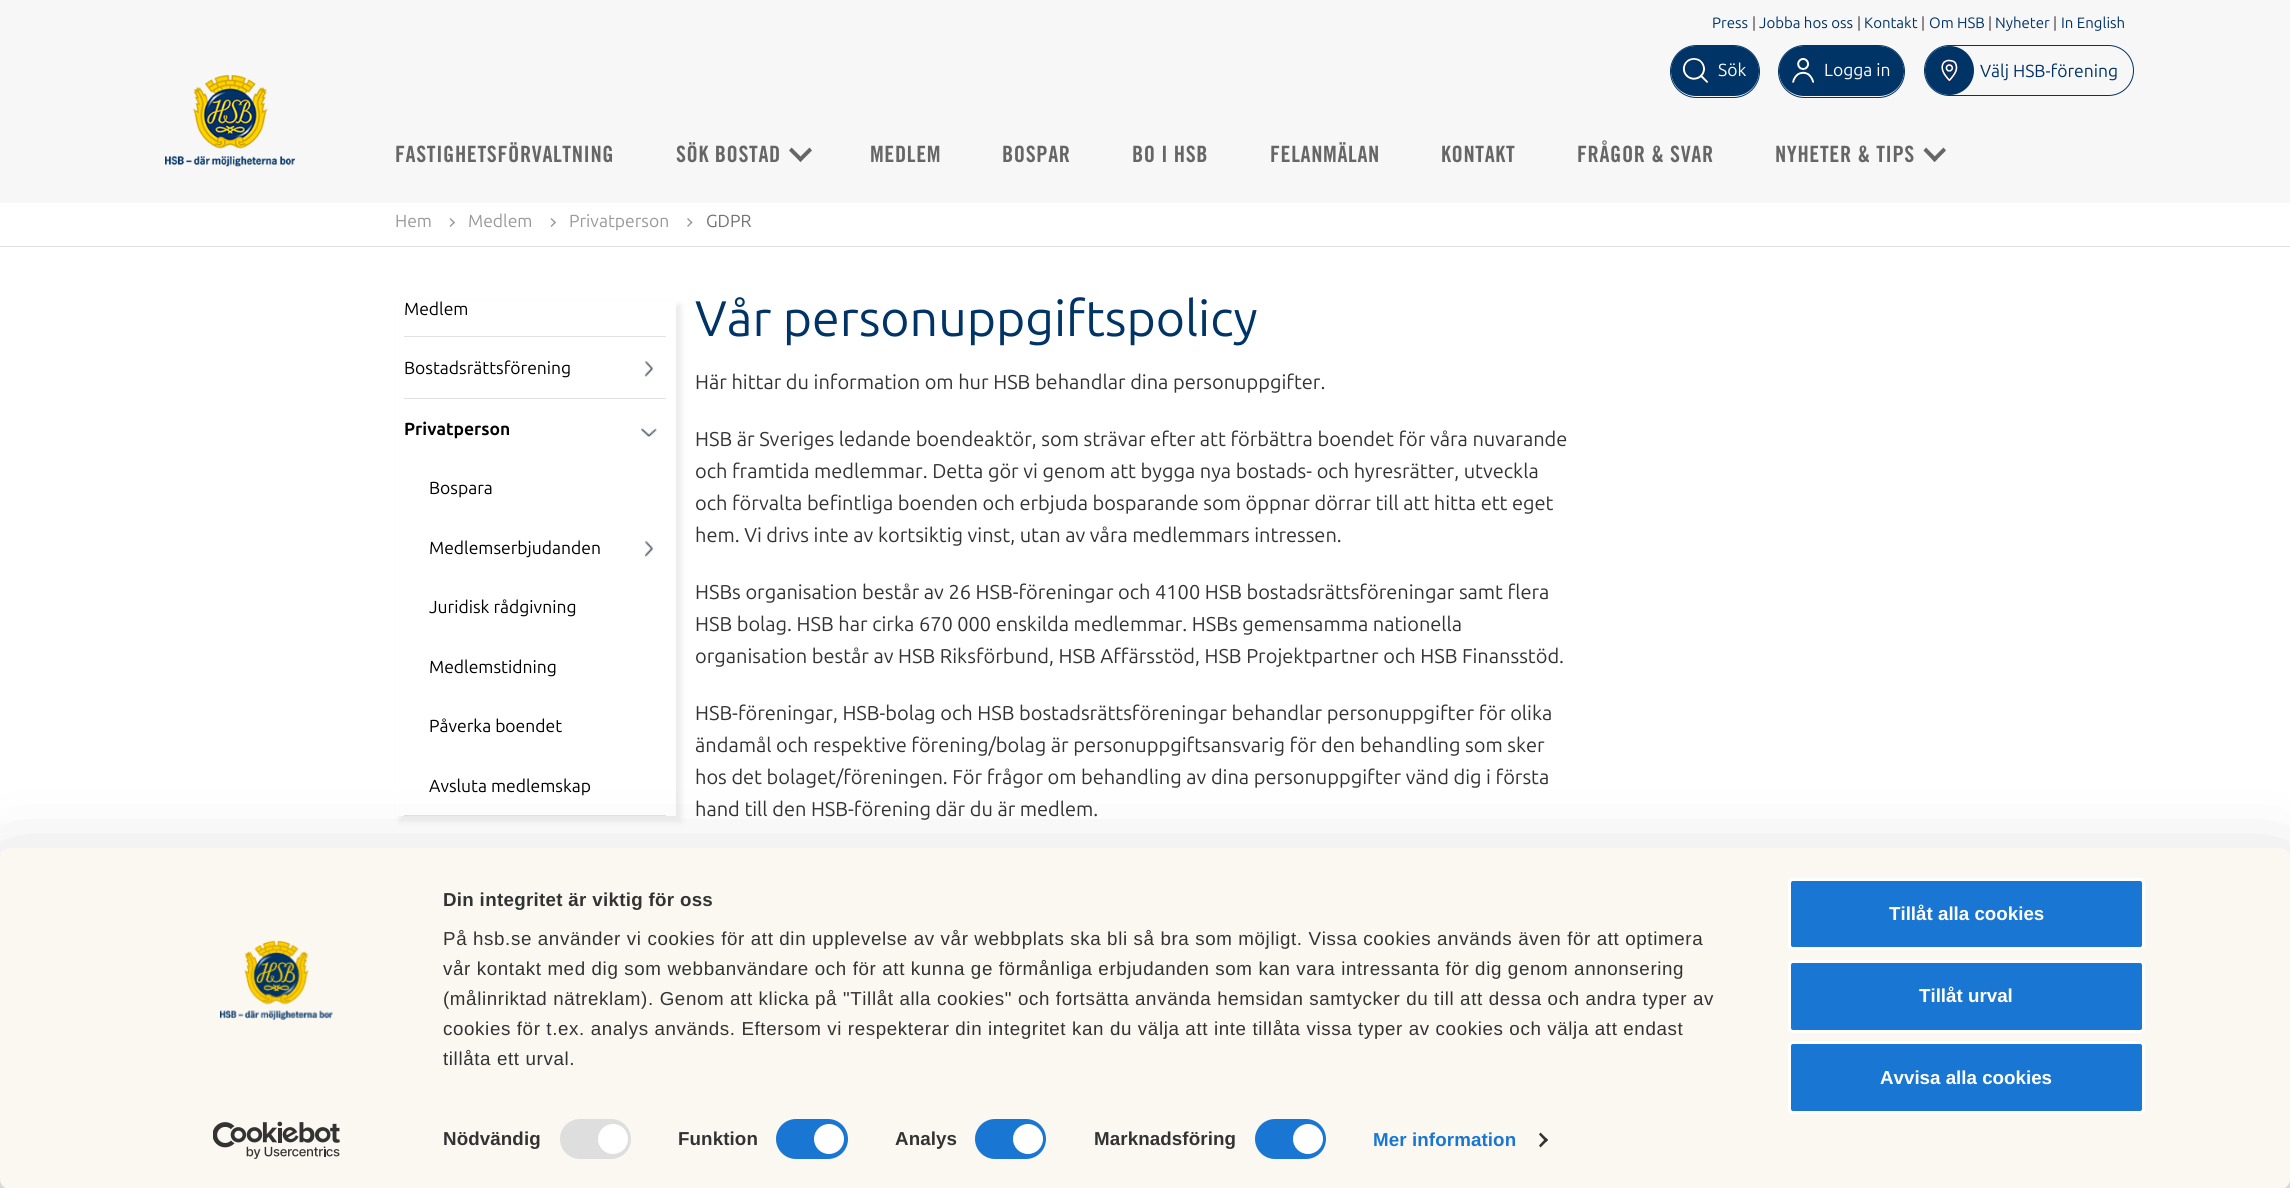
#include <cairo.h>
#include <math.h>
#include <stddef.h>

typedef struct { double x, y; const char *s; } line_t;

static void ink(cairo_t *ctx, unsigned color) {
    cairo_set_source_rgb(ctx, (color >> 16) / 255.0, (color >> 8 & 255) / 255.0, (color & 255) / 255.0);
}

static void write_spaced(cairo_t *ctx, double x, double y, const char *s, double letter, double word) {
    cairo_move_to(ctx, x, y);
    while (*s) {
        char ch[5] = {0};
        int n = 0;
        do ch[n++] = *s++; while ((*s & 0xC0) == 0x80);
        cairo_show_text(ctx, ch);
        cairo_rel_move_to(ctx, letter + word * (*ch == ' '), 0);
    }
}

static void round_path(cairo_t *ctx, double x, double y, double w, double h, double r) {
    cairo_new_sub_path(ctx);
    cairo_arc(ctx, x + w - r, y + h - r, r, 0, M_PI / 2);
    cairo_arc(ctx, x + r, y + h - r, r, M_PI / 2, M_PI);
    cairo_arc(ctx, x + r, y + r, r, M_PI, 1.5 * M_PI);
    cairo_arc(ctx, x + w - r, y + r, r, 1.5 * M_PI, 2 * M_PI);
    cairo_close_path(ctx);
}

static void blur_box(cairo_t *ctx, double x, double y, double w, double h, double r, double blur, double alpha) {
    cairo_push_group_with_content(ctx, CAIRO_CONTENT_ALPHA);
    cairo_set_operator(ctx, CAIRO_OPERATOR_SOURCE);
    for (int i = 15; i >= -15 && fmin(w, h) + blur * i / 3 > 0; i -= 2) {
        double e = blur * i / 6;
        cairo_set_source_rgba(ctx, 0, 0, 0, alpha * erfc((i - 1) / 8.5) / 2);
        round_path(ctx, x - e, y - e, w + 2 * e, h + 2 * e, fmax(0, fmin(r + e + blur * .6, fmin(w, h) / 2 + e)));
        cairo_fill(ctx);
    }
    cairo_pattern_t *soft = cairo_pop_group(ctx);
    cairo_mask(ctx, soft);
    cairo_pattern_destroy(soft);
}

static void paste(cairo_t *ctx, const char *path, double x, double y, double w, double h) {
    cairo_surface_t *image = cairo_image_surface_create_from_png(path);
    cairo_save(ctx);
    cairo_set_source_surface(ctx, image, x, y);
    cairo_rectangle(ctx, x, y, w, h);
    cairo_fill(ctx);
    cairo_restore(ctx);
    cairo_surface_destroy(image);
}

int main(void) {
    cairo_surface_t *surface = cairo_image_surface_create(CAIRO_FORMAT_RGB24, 2290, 1188);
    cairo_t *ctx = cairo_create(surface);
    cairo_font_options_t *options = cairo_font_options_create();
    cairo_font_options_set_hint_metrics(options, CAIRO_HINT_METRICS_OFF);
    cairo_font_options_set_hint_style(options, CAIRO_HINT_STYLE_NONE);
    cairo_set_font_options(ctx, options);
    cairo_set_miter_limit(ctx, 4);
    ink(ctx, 0xFFFFFF);
    cairo_paint(ctx);
    ink(ctx, 0xF7F7F7);
    cairo_rectangle(ctx, 0, 0, 2290, 203);
    cairo_fill(ctx);
    cairo_select_font_face(ctx, "Ubuntu", CAIRO_FONT_SLANT_NORMAL, CAIRO_FONT_WEIGHT_NORMAL);
    cairo_set_font_size(ctx, 15);
    ink(ctx, 0x003366);
    cairo_move_to(ctx, 1712, 28);
    cairo_show_text(ctx, "Press");
    ink(ctx, 0x333333);
    cairo_move_to(ctx, 1752, 28);
    cairo_show_text(ctx, "|");
    ink(ctx, 0x003366);
    cairo_move_to(ctx, 1759, 28);
    cairo_show_text(ctx, "Jobba hos oss");
    ink(ctx, 0x333333);
    cairo_move_to(ctx, 1857, 28);
    cairo_show_text(ctx, "|");
    ink(ctx, 0x003366);
    cairo_move_to(ctx, 1864, 28);
    cairo_show_text(ctx, "Kontakt");
    ink(ctx, 0x333333);
    cairo_move_to(ctx, 1921, 28);
    cairo_show_text(ctx, "|");
    ink(ctx, 0x003366);
    cairo_move_to(ctx, 1929, 28);
    cairo_show_text(ctx, "Om HSB");
    ink(ctx, 0x333333);
    cairo_move_to(ctx, 1988, 28);
    cairo_show_text(ctx, "|");
    ink(ctx, 0x003366);
    cairo_move_to(ctx, 1995, 28);
    cairo_show_text(ctx, "Nyheter");
    ink(ctx, 0x333333);
    cairo_move_to(ctx, 2053, 28);
    cairo_show_text(ctx, "|");
    ink(ctx, 0x003366);
    cairo_move_to(ctx, 2061, 28);
    cairo_show_text(ctx, "In English");
    round_path(ctx, 1671, 46, 88, 50, 25);
    cairo_fill(ctx);
    round_path(ctx, 1670.5, 45.5, 89, 52, 26);
    cairo_set_line_width(ctx, 1);
    cairo_stroke(ctx);
    paste(ctx, "media/1.png", 1682, 58, 26, 25);
    cairo_set_font_size(ctx, 17.5);
    ink(ctx, 0xFFFFFF);
    cairo_move_to(ctx, 1718, 76);
    cairo_show_text(ctx, "Sök");
    ink(ctx, 0x003366);
    round_path(ctx, 1779, 46, 125, 50, 25);
    cairo_fill(ctx);
    round_path(ctx, 1778.5, 45.5, 126, 52, 26);
    cairo_stroke(ctx);
    paste(ctx, "media/2.png", 1792, 58, 22, 25);
    ink(ctx, 0xFFFFFF);
    cairo_move_to(ctx, 1824, 76);
    cairo_show_text(ctx, "Logga in");
    round_path(ctx, 1924.5, 45.5, 209, 50, 25);
    ink(ctx, 0x003366);
    cairo_stroke(ctx);
    cairo_arc(ctx, 1949.5, 70.5, 24.5, 0, 2 * M_PI);
    cairo_fill(ctx);
    paste(ctx, "media/3.png", 1941, 59, 17, 22);
    cairo_move_to(ctx, 1980, 77);
    cairo_show_text(ctx, "Välj HSB-förening");
    paste(ctx, "media/4.png", 165, 75, 130, 92);
    cairo_select_font_face(ctx, "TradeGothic", CAIRO_FONT_SLANT_NORMAL, CAIRO_FONT_WEIGHT_BOLD);
    cairo_set_font_size(ctx, 22.5);
    ink(ctx, 0x666666);
    write_spaced(ctx, 395, 162, "FASTIGHETSFÖRVALTNING", 0.62, 0);
    write_spaced(ctx, 676, 162, "SÖK BOSTAD", 0.62, 0);
    cairo_new_path(ctx);
    cairo_move_to(ctx, 809.5, 147.5);
    cairo_line_to(ctx, 812, 150.5);
    cairo_line_to(ctx, 800.5, 162);
    cairo_line_to(ctx, 798, 159);
    cairo_close_path(ctx);
    cairo_fill(ctx);
    cairo_new_path(ctx);
    cairo_move_to(ctx, 791.5, 147.5);
    cairo_line_to(ctx, 803, 159);
    cairo_line_to(ctx, 800.5, 162);
    cairo_line_to(ctx, 789, 150.5);
    cairo_close_path(ctx);
    cairo_fill(ctx);
    {
        static const line_t items[] = {
            {870, 162, "MEDLEM"},
            {1002, 162, "BOSPAR"},
            {1132, 162, "BO I HSB"},
            {1270, 162, "FELANMÄLAN"},
            {1441, 162, "KONTAKT"},
            {1577, 162, "FRÅGOR & SVAR"},
            {1775, 162, "NYHETER & TIPS"},
        };
        for (size_t i = 0; i < sizeof items / sizeof *items; i++) {
            write_spaced(ctx, items[i].x, items[i].y, items[i].s, 0.62, 0);
        }
    }
    cairo_new_path(ctx);
    cairo_move_to(ctx, 1943.5, 147.5);
    cairo_line_to(ctx, 1946, 150.5);
    cairo_line_to(ctx, 1934.5, 162);
    cairo_line_to(ctx, 1932, 159);
    cairo_close_path(ctx);
    cairo_fill(ctx);
    cairo_new_path(ctx);
    cairo_move_to(ctx, 1926, 147.5);
    cairo_line_to(ctx, 1937.5, 159);
    cairo_line_to(ctx, 1934.5, 162);
    cairo_line_to(ctx, 1923.5, 150.5);
    cairo_close_path(ctx);
    cairo_fill(ctx);
    ink(ctx, 0xE2E2E2);
    cairo_rectangle(ctx, 0, 246, 2290, 1);
    cairo_fill(ctx);
    cairo_select_font_face(ctx, "Ubuntu", CAIRO_FONT_SLANT_NORMAL, CAIRO_FONT_WEIGHT_NORMAL);
    cairo_set_font_size(ctx, 17.5);
    ink(ctx, 0x999999);
    cairo_move_to(ctx, 395, 227);
    cairo_show_text(ctx, "Hem");
    cairo_new_path(ctx);
    cairo_move_to(ctx, 449.5, 219);
    cairo_line_to(ctx, 450.5, 218);
    cairo_line_to(ctx, 455, 222.5);
    cairo_line_to(ctx, 454, 223.5);
    cairo_close_path(ctx);
    cairo_fill(ctx);
    cairo_new_path(ctx);
    cairo_move_to(ctx, 449.5, 226);
    cairo_line_to(ctx, 454, 221.5);
    cairo_line_to(ctx, 455, 222.5);
    cairo_line_to(ctx, 450.5, 227);
    cairo_close_path(ctx);
    cairo_fill(ctx);
    cairo_move_to(ctx, 468, 227);
    cairo_show_text(ctx, "Medlem");
    cairo_new_path(ctx);
    cairo_move_to(ctx, 550.5, 219);
    cairo_line_to(ctx, 551.5, 218);
    cairo_line_to(ctx, 556, 222.5);
    cairo_line_to(ctx, 555, 223.5);
    cairo_close_path(ctx);
    cairo_fill(ctx);
    cairo_new_path(ctx);
    cairo_move_to(ctx, 550.5, 226);
    cairo_line_to(ctx, 555, 221.5);
    cairo_line_to(ctx, 556, 222.5);
    cairo_line_to(ctx, 551.5, 227);
    cairo_close_path(ctx);
    cairo_fill(ctx);
    cairo_move_to(ctx, 569, 227);
    cairo_show_text(ctx, "Privatperson");
    cairo_new_path(ctx);
    cairo_move_to(ctx, 687, 219);
    cairo_line_to(ctx, 688, 218);
    cairo_line_to(ctx, 692.5, 222.5);
    cairo_line_to(ctx, 691.5, 223.5);
    cairo_close_path(ctx);
    cairo_fill(ctx);
    cairo_new_path(ctx);
    cairo_move_to(ctx, 687, 226);
    cairo_line_to(ctx, 691.5, 221.5);
    cairo_line_to(ctx, 692.5, 222.5);
    cairo_line_to(ctx, 688, 227);
    cairo_close_path(ctx);
    cairo_fill(ctx);
    ink(ctx, 0x727272);
    cairo_move_to(ctx, 706, 227);
    cairo_show_text(ctx, "GDPR");
    cairo_save(ctx);
    cairo_set_fill_rule(ctx, CAIRO_FILL_RULE_EVEN_ODD);
    cairo_new_path(ctx);
    cairo_move_to(ctx, 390, 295);
    cairo_line_to(ctx, 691, 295);
    cairo_line_to(ctx, 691, 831);
    cairo_line_to(ctx, 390, 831);
    cairo_close_path(ctx);
    cairo_move_to(ctx, 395, 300);
    cairo_line_to(ctx, 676, 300);
    cairo_line_to(ctx, 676, 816);
    cairo_line_to(ctx, 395, 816);
    cairo_close_path(ctx);
    cairo_clip(ctx);
    ink(ctx, 0xD3D3D3);
    blur_box(ctx, 400, 305, 281, 516, 0, 3, 0.47);
    cairo_restore(ctx);
    ink(ctx, 0x000000);
    cairo_move_to(ctx, 404, 315);
    cairo_show_text(ctx, "Medlem");
    ink(ctx, 0xE2E2E2);
    cairo_rectangle(ctx, 404, 336, 262, 1);
    cairo_fill(ctx);
    ink(ctx, 0x000000);
    cairo_move_to(ctx, 404, 374);
    cairo_show_text(ctx, "Bostadsrättsförening");
    paste(ctx, "media/5.png", 644, 361, 9, 16);
    ink(ctx, 0xE2E2E2);
    cairo_rectangle(ctx, 404, 398, 262, 1);
    cairo_fill(ctx);
    cairo_select_font_face(ctx, "Ubuntu", CAIRO_FONT_SLANT_NORMAL, CAIRO_FONT_WEIGHT_BOLD);
    ink(ctx, 0x000000);
    cairo_move_to(ctx, 404, 435);
    cairo_show_text(ctx, "Privatperson");
    paste(ctx, "media/6.png", 641, 428, 16, 9);
    ink(ctx, 0xE2E2E2);
    cairo_rectangle(ctx, 404, 815, 262, 1);
    cairo_fill(ctx);
    cairo_select_font_face(ctx, "Ubuntu", CAIRO_FONT_SLANT_NORMAL, CAIRO_FONT_WEIGHT_NORMAL);
    ink(ctx, 0x000000);
    cairo_move_to(ctx, 429, 494);
    cairo_show_text(ctx, "Bospara");
    cairo_move_to(ctx, 429, 554);
    cairo_show_text(ctx, "Medlemserbjudanden");
    paste(ctx, "media/5.png", 644, 541, 9, 16);
    {
        static const line_t items[] = {
            {429, 613, "Juridisk rådgivning"},
            {429, 673, "Medlemstidning"},
            {429, 732, "Påverka boendet"},
            {429, 792, "Avsluta medlemskap"},
        };
        for (size_t i = 0; i < sizeof items / sizeof *items; i++) {
            cairo_move_to(ctx, items[i].x, items[i].y);
            cairo_show_text(ctx, items[i].s);
        }
    }
    cairo_set_font_size(ctx, 50);
    ink(ctx, 0x003366);
    cairo_move_to(ctx, 695, 336);
    cairo_show_text(ctx, "Vår personuppgiftspolicy");
    cairo_set_font_size(ctx, 20);
    ink(ctx, 0x333333);
    {
        static const line_t items[] = {
            {695, 389, "Här hittar du information om hur HSB behandlar dina personuppgifter."},
            {695, 446, "HSB är Sveriges ledande boendeaktör, som strävar efter att förbättra boendet för våra nuvarande"},
            {695, 478, "och framtida medlemmar. Detta gör vi genom att bygga nya bostads- och hyresrätter, utveckla"},
            {695, 510, "och förvalta befintliga boenden och erbjuda bosparande som öppnar dörrar till att hitta ett eget"},
            {695, 542, "hem. Vi drivs inte av kortsiktig vinst, utan av våra medlemmars intressen."},
            {695, 599, "HSBs organisation består av 26 HSB-föreningar och 4100 HSB bostadsrättsföreningar samt flera"},
            {695, 631, "HSB bolag. HSB har cirka 670 000 enskilda medlemmar. HSBs gemensamma nationella"},
            {695, 663, "organisation består av HSB Riksförbund, HSB Affärsstöd, HSB Projektpartner och HSB Finansstöd."},
            {695, 720, "HSB-föreningar, HSB-bolag och HSB bostadsrättsföreningar behandlar personuppgifter för olika"},
            {695, 752, "ändamål och respektive förening/bolag är personuppgiftsansvarig för den behandling som sker"},
            {695, 784, "hos det bolaget/föreningen. För frågor om behandling av dina personuppgifter vänd dig i första"},
            {695, 816, "hand till den HSB-förening där du är medlem."},
        };
        for (size_t i = 0; i < sizeof items / sizeof *items; i++) {
            cairo_move_to(ctx, items[i].x, items[i].y);
            cairo_show_text(ctx, items[i].s);
        }
    }
    ink(ctx, 0x000000);
    blur_box(ctx, 0, 885, 2290, 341, 10, 44, 0.3);
    ink(ctx, 0xFBF8F2);
    round_path(ctx, 0, 848, 2290, 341, 10);
    cairo_fill(ctx);
    paste(ctx, "media/7.png", 220, 940, 113, 80);
    paste(ctx, "media/8.png", 213, 1121, 127, 38);
    cairo_select_font_face(ctx, "Liberation Sans", CAIRO_FONT_SLANT_NORMAL, CAIRO_FONT_WEIGHT_BOLD);
    cairo_set_font_size(ctx, 18.75);
    ink(ctx, 0x333333);
    write_spaced(ctx, 443, 906, "Din integritet är viktig för oss", 0.3, 0);
    cairo_select_font_face(ctx, "Liberation Sans", CAIRO_FONT_SLANT_NORMAL, CAIRO_FONT_WEIGHT_NORMAL);
    {
        static const line_t items[] = {
            {443, 945, "På hsb.se använder vi cookies för att din upplevelse av vår webbplats ska bli så bra som möjligt. Vissa cookies används även för att optimera"},
            {443, 975, "vår kontakt med dig som webbanvändare och för att kunna ge förmånliga erbjudanden som kan vara intressanta för dig genom annonsering"},
            {443, 1005, "(målinriktad nätreklam). Genom att klicka på \"Tillåt alla cookies\" och fortsätta använda hemsidan samtycker du till att dessa och andra typer av"},
            {443, 1035, "cookies för t.ex. analys används. Eftersom vi respekterar din integritet kan du välja att inte tillåta vissa typer av cookies och välja att endast"},
            {443, 1065, "tillåta ett urval."},
        };
        for (size_t i = 0; i < sizeof items / sizeof *items; i++) {
            write_spaced(ctx, items[i].x, items[i].y, items[i].s, 0.62, 0);
        }
    }
    cairo_select_font_face(ctx, "Liberation Sans", CAIRO_FONT_SLANT_NORMAL, CAIRO_FONT_WEIGHT_BOLD);
    write_spaced(ctx, 443, 1145, "Nödvändig", 0.1, 0);
    ink(ctx, 0xDEDEDE);
    round_path(ctx, 560, 1119, 71, 40, 20);
    cairo_fill(ctx);
    ink(ctx, 0xFFFFFF);
    cairo_arc(ctx, 613, 1139, 15, 0, 2 * M_PI);
    cairo_fill(ctx);
    ink(ctx, 0x333333);
    write_spaced(ctx, 678, 1145, "Funktion", 0.1, 0);
    ink(ctx, 0x1976D2);
    round_path(ctx, 776, 1119, 72, 40, 20);
    cairo_fill(ctx);
    ink(ctx, 0xFFFFFF);
    cairo_arc(ctx, 829, 1139, 15, 0, 2 * M_PI);
    cairo_fill(ctx);
    ink(ctx, 0x333333);
    write_spaced(ctx, 895, 1145, "Analys", 0.1, 0);
    ink(ctx, 0x1976D2);
    round_path(ctx, 975, 1119, 71, 40, 20);
    cairo_fill(ctx);
    ink(ctx, 0xFFFFFF);
    cairo_arc(ctx, 1028, 1139, 15, 0, 2 * M_PI);
    cairo_fill(ctx);
    ink(ctx, 0x333333);
    write_spaced(ctx, 1094, 1145, "Marknadsföring", 0.1, 0);
    ink(ctx, 0x1976D2);
    round_path(ctx, 1255, 1119, 71, 40, 20);
    cairo_fill(ctx);
    ink(ctx, 0xFFFFFF);
    cairo_arc(ctx, 1308, 1139, 15, 0, 2 * M_PI);
    cairo_fill(ctx);
    ink(ctx, 0x1976D2);
    write_spaced(ctx, 1373, 1146, "Mer information", 0.1, 0);
    ink(ctx, 0x333333);
    cairo_new_path(ctx);
    cairo_move_to(ctx, 1540.5, 1132.5);
    cairo_line_to(ctx, 1548, 1140);
    cairo_line_to(ctx, 1546, 1142);
    cairo_line_to(ctx, 1539, 1134.5);
    cairo_close_path(ctx);
    cairo_fill(ctx);
    cairo_new_path(ctx);
    cairo_move_to(ctx, 1546, 1138);
    cairo_line_to(ctx, 1548, 1140);
    cairo_line_to(ctx, 1540.5, 1147.5);
    cairo_line_to(ctx, 1539, 1145.5);
    cairo_close_path(ctx);
    cairo_fill(ctx);
    ink(ctx, 0x1976D2);
    round_path(ctx, 1789.5, 879.5, 354, 69, 3.5);
    cairo_fill_preserve(ctx);
    ink(ctx, 0xFFFFFF);
    cairo_set_line_width(ctx, 3);
    cairo_stroke(ctx);
    cairo_move_to(ctx, 1889, 920);
    cairo_show_text(ctx, "Tillåt alla cookies");
    ink(ctx, 0x1976D2);
    round_path(ctx, 1789.5, 961.5, 354, 70, 3.5);
    cairo_fill_preserve(ctx);
    ink(ctx, 0xFFFFFF);
    cairo_stroke(ctx);
    cairo_move_to(ctx, 1919, 1002);
    cairo_show_text(ctx, "Tillåt urval");
    ink(ctx, 0x1976D2);
    round_path(ctx, 1789.5, 1042.5, 354, 70, 3.5);
    cairo_fill_preserve(ctx);
    ink(ctx, 0xFFFFFF);
    cairo_stroke(ctx);
    cairo_move_to(ctx, 1880, 1084);
    cairo_show_text(ctx, "Avvisa alla cookies");
    cairo_surface_write_to_png(surface, "image.png");
    cairo_font_options_destroy(options);
    cairo_destroy(ctx);
    cairo_surface_destroy(surface);
    return 0;
}
